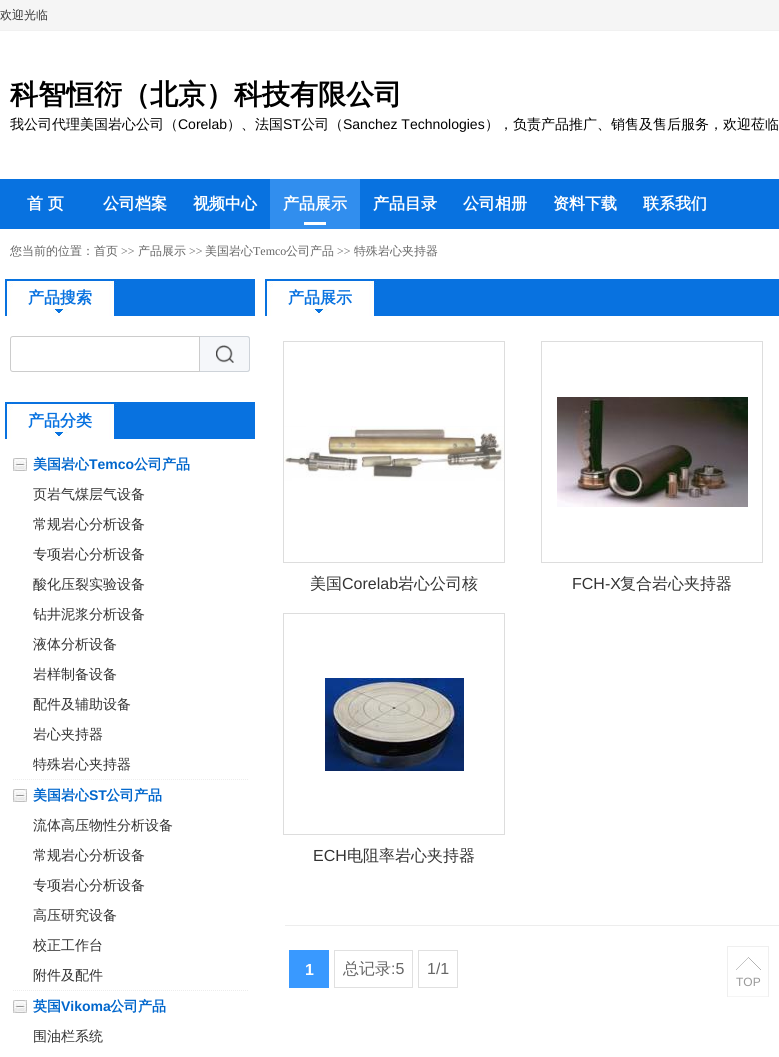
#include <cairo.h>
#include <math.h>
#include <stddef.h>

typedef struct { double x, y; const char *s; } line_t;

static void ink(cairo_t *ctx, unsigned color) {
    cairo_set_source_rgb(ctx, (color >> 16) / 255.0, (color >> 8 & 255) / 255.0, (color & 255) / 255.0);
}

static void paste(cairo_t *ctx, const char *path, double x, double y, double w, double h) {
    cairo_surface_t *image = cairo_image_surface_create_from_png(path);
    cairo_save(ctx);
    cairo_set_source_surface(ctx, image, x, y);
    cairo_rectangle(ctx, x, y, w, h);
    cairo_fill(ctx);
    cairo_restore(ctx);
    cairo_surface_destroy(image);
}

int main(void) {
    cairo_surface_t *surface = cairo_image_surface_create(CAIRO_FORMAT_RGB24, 779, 1057);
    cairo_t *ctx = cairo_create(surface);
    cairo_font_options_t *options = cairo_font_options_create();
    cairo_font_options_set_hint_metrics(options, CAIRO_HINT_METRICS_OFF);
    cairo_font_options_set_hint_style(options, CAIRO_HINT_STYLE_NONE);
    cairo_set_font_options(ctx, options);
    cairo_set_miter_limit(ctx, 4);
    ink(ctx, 0xFFFFFF);
    cairo_paint(ctx);
    ink(ctx, 0xF5F5F5);
    cairo_rectangle(ctx, 0, 0, 779, 30);
    cairo_fill(ctx);
    ink(ctx, 0xF1F1F1);
    cairo_rectangle(ctx, 0, 30, 779, 1);
    cairo_fill(ctx);
    cairo_select_font_face(ctx, "WenQuanYi Zen Hei Medium", CAIRO_FONT_SLANT_NORMAL, CAIRO_FONT_WEIGHT_NORMAL);
    cairo_set_font_size(ctx, 12);
    ink(ctx, 0x333333);
    cairo_move_to(ctx, 0, 19);
    cairo_show_text(ctx, "欢迎光临");
    cairo_select_font_face(ctx, "WenQuanYi Zen Hei", CAIRO_FONT_SLANT_NORMAL, CAIRO_FONT_WEIGHT_BOLD);
    cairo_set_font_size(ctx, 28);
    ink(ctx, 0x000000);
    cairo_move_to(ctx, 10, 104);
    cairo_show_text(ctx, "科智恒衍（北京）科技有限公司");
    cairo_select_font_face(ctx, "WenQuanYi Zen Hei Medium", CAIRO_FONT_SLANT_NORMAL, CAIRO_FONT_WEIGHT_NORMAL);
    cairo_set_font_size(ctx, 14);
    cairo_move_to(ctx, 10, 129);
    cairo_show_text(ctx, "我公司代理美国岩心公司（");
    cairo_select_font_face(ctx, "Liberation Sans", CAIRO_FONT_SLANT_NORMAL, CAIRO_FONT_WEIGHT_NORMAL);
    cairo_move_to(ctx, 178, 129);
    cairo_show_text(ctx, "Corelab");
    cairo_select_font_face(ctx, "WenQuanYi Zen Hei Medium", CAIRO_FONT_SLANT_NORMAL, CAIRO_FONT_WEIGHT_NORMAL);
    cairo_move_to(ctx, 227, 129);
    cairo_show_text(ctx, "）、法国");
    cairo_select_font_face(ctx, "Liberation Sans", CAIRO_FONT_SLANT_NORMAL, CAIRO_FONT_WEIGHT_NORMAL);
    cairo_move_to(ctx, 283, 129);
    cairo_show_text(ctx, "ST");
    cairo_select_font_face(ctx, "WenQuanYi Zen Hei Medium", CAIRO_FONT_SLANT_NORMAL, CAIRO_FONT_WEIGHT_NORMAL);
    cairo_move_to(ctx, 301, 129);
    cairo_show_text(ctx, "公司（");
    cairo_select_font_face(ctx, "Liberation Sans", CAIRO_FONT_SLANT_NORMAL, CAIRO_FONT_WEIGHT_NORMAL);
    cairo_move_to(ctx, 343, 129);
    cairo_show_text(ctx, "Sanchez Technologies");
    cairo_select_font_face(ctx, "WenQuanYi Zen Hei Medium", CAIRO_FONT_SLANT_NORMAL, CAIRO_FONT_WEIGHT_NORMAL);
    cairo_move_to(ctx, 485, 129);
    cairo_show_text(ctx, "），负责产品推广、销售及售后服务，欢迎莅临");
    ink(ctx, 0x0872E0);
    cairo_rectangle(ctx, 0, 179, 779, 50);
    cairo_fill(ctx);
    cairo_select_font_face(ctx, "WenQuanYi Zen Hei", CAIRO_FONT_SLANT_NORMAL, CAIRO_FONT_WEIGHT_BOLD);
    cairo_set_font_size(ctx, 16);
    ink(ctx, 0xFFFFFF);
    {
        static const line_t items[] = {
            {27, 209, "首 页"},
            {103, 209, "公司档案"},
            {193, 209, "视频中心"},
        };
        for (size_t i = 0; i < sizeof items / sizeof *items; i++) {
            cairo_move_to(ctx, items[i].x, items[i].y);
            cairo_show_text(ctx, items[i].s);
        }
    }
    ink(ctx, 0x318EEE);
    cairo_rectangle(ctx, 270, 179, 90, 50);
    cairo_fill(ctx);
    paste(ctx, "media/1.png", 304, 219, 22, 8);
    ink(ctx, 0xFFFFFF);
    {
        static const line_t items[] = {
            {283, 209, "产品展示"},
            {373, 209, "产品目录"},
            {463, 209, "公司相册"},
            {553, 209, "资料下载"},
            {643, 209, "联系我们"},
        };
        for (size_t i = 0; i < sizeof items / sizeof *items; i++) {
            cairo_move_to(ctx, items[i].x, items[i].y);
            cairo_show_text(ctx, items[i].s);
        }
    }
    cairo_select_font_face(ctx, "WenQuanYi Zen Hei Medium", CAIRO_FONT_SLANT_NORMAL, CAIRO_FONT_WEIGHT_NORMAL);
    cairo_set_font_size(ctx, 12);
    ink(ctx, 0x666666);
    cairo_move_to(ctx, 10, 255);
    cairo_show_text(ctx, "您当前的位置：首页");
    cairo_select_font_face(ctx, "Liberation Serif", CAIRO_FONT_SLANT_NORMAL, CAIRO_FONT_WEIGHT_NORMAL);
    cairo_move_to(ctx, 121, 255);
    cairo_show_text(ctx, ">>");
    cairo_select_font_face(ctx, "WenQuanYi Zen Hei Medium", CAIRO_FONT_SLANT_NORMAL, CAIRO_FONT_WEIGHT_NORMAL);
    cairo_move_to(ctx, 138, 255);
    cairo_show_text(ctx, "产品展示");
    cairo_select_font_face(ctx, "Liberation Serif", CAIRO_FONT_SLANT_NORMAL, CAIRO_FONT_WEIGHT_NORMAL);
    cairo_move_to(ctx, 189, 255);
    cairo_show_text(ctx, ">>");
    cairo_select_font_face(ctx, "WenQuanYi Zen Hei Medium", CAIRO_FONT_SLANT_NORMAL, CAIRO_FONT_WEIGHT_NORMAL);
    cairo_move_to(ctx, 205, 255);
    cairo_show_text(ctx, "美国岩心");
    cairo_select_font_face(ctx, "Liberation Serif", CAIRO_FONT_SLANT_NORMAL, CAIRO_FONT_WEIGHT_NORMAL);
    cairo_move_to(ctx, 253, 255);
    cairo_show_text(ctx, "Temco");
    cairo_select_font_face(ctx, "WenQuanYi Zen Hei Medium", CAIRO_FONT_SLANT_NORMAL, CAIRO_FONT_WEIGHT_NORMAL);
    cairo_move_to(ctx, 286, 255);
    cairo_show_text(ctx, "公司产品");
    cairo_select_font_face(ctx, "Liberation Serif", CAIRO_FONT_SLANT_NORMAL, CAIRO_FONT_WEIGHT_NORMAL);
    cairo_move_to(ctx, 337, 255);
    cairo_show_text(ctx, ">>");
    cairo_select_font_face(ctx, "WenQuanYi Zen Hei Medium", CAIRO_FONT_SLANT_NORMAL, CAIRO_FONT_WEIGHT_NORMAL);
    cairo_move_to(ctx, 354, 255);
    cairo_show_text(ctx, "特殊岩心夹持器");
    paste(ctx, "media/2.png", 5, 279, 250, 37);
    cairo_select_font_face(ctx, "WenQuanYi Zen Hei", CAIRO_FONT_SLANT_NORMAL, CAIRO_FONT_WEIGHT_BOLD);
    cairo_set_font_size(ctx, 16);
    ink(ctx, 0x0872E0);
    cairo_move_to(ctx, 28, 303);
    cairo_show_text(ctx, "产品搜索");
    cairo_new_path(ctx);
    cairo_move_to(ctx, 13, 336.5);
    cairo_line_to(ctx, 199.5, 336.5);
    cairo_line_to(ctx, 199.5, 371.5);
    cairo_line_to(ctx, 13, 371.5);
    cairo_curve_to(ctx, 11.5, 371.5, 10.5, 370.5, 10.5, 369);
    cairo_line_to(ctx, 10.5, 339);
    cairo_curve_to(ctx, 10.5, 337.5, 11.5, 336.5, 13, 336.5);
    cairo_close_path(ctx);
    ink(ctx, 0xCCCCCC);
    cairo_set_line_width(ctx, 1);
    cairo_stroke(ctx);
    ink(ctx, 0xF5F7FA);
    cairo_new_path(ctx);
    cairo_move_to(ctx, 200, 336);
    cairo_line_to(ctx, 247, 336);
    cairo_curve_to(ctx, 248.5, 336, 250, 337.5, 250, 339);
    cairo_line_to(ctx, 250, 369);
    cairo_curve_to(ctx, 250, 370.5, 248.5, 372, 247, 372);
    cairo_line_to(ctx, 200, 372);
    cairo_close_path(ctx);
    cairo_fill(ctx);
    paste(ctx, "media/3.png", 216, 345, 18, 18);
    ink(ctx, 0xCED3D9);
    cairo_set_fill_rule(ctx, CAIRO_FILL_RULE_EVEN_ODD);
    cairo_new_path(ctx);
    cairo_move_to(ctx, 200, 336);
    cairo_line_to(ctx, 247, 336);
    cairo_curve_to(ctx, 249, 336, 250, 337, 250, 339);
    cairo_line_to(ctx, 250, 369);
    cairo_curve_to(ctx, 250, 371, 249, 372, 247, 372);
    cairo_line_to(ctx, 200, 372);
    cairo_close_path(ctx);
    cairo_move_to(ctx, 200, 337);
    cairo_line_to(ctx, 247, 337);
    cairo_curve_to(ctx, 248, 337, 249, 338, 249, 339);
    cairo_line_to(ctx, 249, 369);
    cairo_curve_to(ctx, 249, 370, 248, 371, 247, 371);
    cairo_line_to(ctx, 200, 371);
    cairo_close_path(ctx);
    cairo_fill(ctx);
    paste(ctx, "media/2.png", 5, 402, 250, 37);
    ink(ctx, 0x0872E0);
    cairo_move_to(ctx, 28, 426);
    cairo_show_text(ctx, "产品分类");
    cairo_new_path(ctx);
    cairo_move_to(ctx, 13, 779.5);
    cairo_line_to(ctx, 248, 779.5);
    ink(ctx, 0xEDEDED);
    cairo_set_dash(ctx, (double[]){1, 1}, 2, 0);
    cairo_stroke(ctx);
    paste(ctx, "media/4.png", 13, 458, 14, 13);
    cairo_set_font_size(ctx, 14);
    ink(ctx, 0x0066CC);
    cairo_move_to(ctx, 33, 469);
    cairo_show_text(ctx, "美国岩心");
    cairo_select_font_face(ctx, "Liberation Sans", CAIRO_FONT_SLANT_NORMAL, CAIRO_FONT_WEIGHT_BOLD);
    cairo_move_to(ctx, 89, 469);
    cairo_show_text(ctx, "Temco");
    cairo_select_font_face(ctx, "WenQuanYi Zen Hei", CAIRO_FONT_SLANT_NORMAL, CAIRO_FONT_WEIGHT_BOLD);
    cairo_move_to(ctx, 134, 469);
    cairo_show_text(ctx, "公司产品");
    cairo_select_font_face(ctx, "WenQuanYi Zen Hei Medium", CAIRO_FONT_SLANT_NORMAL, CAIRO_FONT_WEIGHT_NORMAL);
    ink(ctx, 0x333333);
    {
        static const line_t items[] = {
            {33, 499, "页岩气煤层气设备"},
            {33, 529, "常规岩心分析设备"},
            {33, 559, "专项岩心分析设备"},
            {33, 589, "酸化压裂实验设备"},
            {33, 619, "钻井泥浆分析设备"},
            {33, 649, "液体分析设备"},
            {33, 679, "岩样制备设备"},
            {33, 709, "配件及辅助设备"},
            {33, 739, "岩心夹持器"},
            {33, 769, "特殊岩心夹持器"},
        };
        for (size_t i = 0; i < sizeof items / sizeof *items; i++) {
            cairo_move_to(ctx, items[i].x, items[i].y);
            cairo_show_text(ctx, items[i].s);
        }
    }
    cairo_new_path(ctx);
    cairo_move_to(ctx, 13, 990.5);
    cairo_line_to(ctx, 248, 990.5);
    ink(ctx, 0xEDEDED);
    cairo_stroke(ctx);
    paste(ctx, "media/4.png", 13, 789, 14, 13);
    cairo_select_font_face(ctx, "WenQuanYi Zen Hei", CAIRO_FONT_SLANT_NORMAL, CAIRO_FONT_WEIGHT_BOLD);
    ink(ctx, 0x0066CC);
    cairo_move_to(ctx, 33, 800);
    cairo_show_text(ctx, "美国岩心");
    cairo_select_font_face(ctx, "Liberation Sans", CAIRO_FONT_SLANT_NORMAL, CAIRO_FONT_WEIGHT_BOLD);
    cairo_move_to(ctx, 89, 800);
    cairo_show_text(ctx, "ST");
    cairo_select_font_face(ctx, "WenQuanYi Zen Hei", CAIRO_FONT_SLANT_NORMAL, CAIRO_FONT_WEIGHT_BOLD);
    cairo_move_to(ctx, 106, 800);
    cairo_show_text(ctx, "公司产品");
    cairo_select_font_face(ctx, "WenQuanYi Zen Hei Medium", CAIRO_FONT_SLANT_NORMAL, CAIRO_FONT_WEIGHT_NORMAL);
    ink(ctx, 0x333333);
    {
        static const line_t items[] = {
            {33, 830, "流体高压物性分析设备"},
            {33, 860, "常规岩心分析设备"},
            {33, 890, "专项岩心分析设备"},
            {33, 920, "高压研究设备"},
            {33, 950, "校正工作台"},
            {33, 980, "附件及配件"},
        };
        for (size_t i = 0; i < sizeof items / sizeof *items; i++) {
            cairo_move_to(ctx, items[i].x, items[i].y);
            cairo_show_text(ctx, items[i].s);
        }
    }
    paste(ctx, "media/4.png", 13, 1000, 14, 13);
    cairo_select_font_face(ctx, "WenQuanYi Zen Hei", CAIRO_FONT_SLANT_NORMAL, CAIRO_FONT_WEIGHT_BOLD);
    ink(ctx, 0x0066CC);
    cairo_move_to(ctx, 33, 1011);
    cairo_show_text(ctx, "英国");
    cairo_select_font_face(ctx, "Liberation Sans", CAIRO_FONT_SLANT_NORMAL, CAIRO_FONT_WEIGHT_BOLD);
    cairo_move_to(ctx, 61, 1011);
    cairo_show_text(ctx, "Vikoma");
    cairo_select_font_face(ctx, "WenQuanYi Zen Hei", CAIRO_FONT_SLANT_NORMAL, CAIRO_FONT_WEIGHT_BOLD);
    cairo_move_to(ctx, 110, 1011);
    cairo_show_text(ctx, "公司产品");
    cairo_select_font_face(ctx, "WenQuanYi Zen Hei Medium", CAIRO_FONT_SLANT_NORMAL, CAIRO_FONT_WEIGHT_NORMAL);
    ink(ctx, 0x333333);
    cairo_move_to(ctx, 33, 1041);
    cairo_show_text(ctx, "围油栏系统");
    paste(ctx, "media/5.png", 265, 279, 514, 37);
    cairo_select_font_face(ctx, "WenQuanYi Zen Hei", CAIRO_FONT_SLANT_NORMAL, CAIRO_FONT_WEIGHT_BOLD);
    cairo_set_font_size(ctx, 16);
    ink(ctx, 0x0872E0);
    cairo_move_to(ctx, 288, 303);
    cairo_show_text(ctx, "产品展示");
    cairo_rectangle(ctx, 283.5, 341.5, 221, 221);
    ink(ctx, 0xDDDDDD);
    cairo_set_dash(ctx, NULL, 0, 0);
    cairo_stroke(ctx);
    paste(ctx, "media/6.png", 284, 426, 220, 55);
    cairo_select_font_face(ctx, "WenQuanYi Zen Hei Medium", CAIRO_FONT_SLANT_NORMAL, CAIRO_FONT_WEIGHT_NORMAL);
    ink(ctx, 0x333333);
    cairo_move_to(ctx, 310, 589);
    cairo_show_text(ctx, "美国");
    cairo_select_font_face(ctx, "Liberation Sans", CAIRO_FONT_SLANT_NORMAL, CAIRO_FONT_WEIGHT_NORMAL);
    cairo_move_to(ctx, 342, 589);
    cairo_show_text(ctx, "Corelab");
    cairo_select_font_face(ctx, "WenQuanYi Zen Hei Medium", CAIRO_FONT_SLANT_NORMAL, CAIRO_FONT_WEIGHT_NORMAL);
    cairo_move_to(ctx, 398, 589);
    cairo_show_text(ctx, "岩心公司核");
    cairo_rectangle(ctx, 541.5, 341.5, 221, 221);
    ink(ctx, 0xDDDDDD);
    cairo_stroke(ctx);
    paste(ctx, "media/7.png", 557, 397, 191, 110);
    cairo_select_font_face(ctx, "Liberation Sans", CAIRO_FONT_SLANT_NORMAL, CAIRO_FONT_WEIGHT_NORMAL);
    ink(ctx, 0x333333);
    cairo_move_to(ctx, 572, 589);
    cairo_show_text(ctx, "FCH-X");
    cairo_select_font_face(ctx, "WenQuanYi Zen Hei Medium", CAIRO_FONT_SLANT_NORMAL, CAIRO_FONT_WEIGHT_NORMAL);
    cairo_move_to(ctx, 620, 589);
    cairo_show_text(ctx, "复合岩心夹持器");
    cairo_rectangle(ctx, 283.5, 613.5, 221, 221);
    ink(ctx, 0xDDDDDD);
    cairo_stroke(ctx);
    paste(ctx, "media/8.png", 325, 678, 139, 93);
    cairo_select_font_face(ctx, "Liberation Sans", CAIRO_FONT_SLANT_NORMAL, CAIRO_FONT_WEIGHT_NORMAL);
    ink(ctx, 0x333333);
    cairo_move_to(ctx, 313, 861);
    cairo_show_text(ctx, "ECH");
    cairo_select_font_face(ctx, "WenQuanYi Zen Hei Medium", CAIRO_FONT_SLANT_NORMAL, CAIRO_FONT_WEIGHT_NORMAL);
    cairo_move_to(ctx, 347, 861);
    cairo_show_text(ctx, "电阻率岩心夹持器");
    ink(ctx, 0xEDEDED);
    cairo_rectangle(ctx, 285, 925, 494, 1);
    cairo_fill(ctx);
    ink(ctx, 0x3999FF);
    cairo_rectangle(ctx, 289, 950, 40, 38);
    cairo_fill(ctx);
    cairo_select_font_face(ctx, "Liberation Sans", CAIRO_FONT_SLANT_NORMAL, CAIRO_FONT_WEIGHT_BOLD);
    ink(ctx, 0xFFFFFF);
    cairo_move_to(ctx, 305, 975);
    cairo_show_text(ctx, "1");
    cairo_rectangle(ctx, 334.5, 950.5, 78, 37);
    ink(ctx, 0xE0E0E0);
    cairo_stroke(ctx);
    cairo_select_font_face(ctx, "WenQuanYi Zen Hei Medium", CAIRO_FONT_SLANT_NORMAL, CAIRO_FONT_WEIGHT_NORMAL);
    ink(ctx, 0x666666);
    cairo_move_to(ctx, 343, 974);
    cairo_show_text(ctx, "总记录");
    cairo_select_font_face(ctx, "Liberation Sans", CAIRO_FONT_SLANT_NORMAL, CAIRO_FONT_WEIGHT_NORMAL);
    cairo_move_to(ctx, 391, 974);
    cairo_show_text(ctx, ":5");
    cairo_rectangle(ctx, 418.5, 950.5, 39, 37);
    ink(ctx, 0xE0E0E0);
    cairo_stroke(ctx);
    ink(ctx, 0x666666);
    cairo_move_to(ctx, 427, 974);
    cairo_show_text(ctx, "1/1");
    ink(ctx, 0xFFFFFF);
    cairo_rectangle(ctx, 440, 962, 1, 2);
    cairo_fill(ctx);
    cairo_rectangle(ctx, 727.5, 946.5, 41, 50);
    ink(ctx, 0xEFEFEF);
    cairo_stroke(ctx);
    paste(ctx, "media/9.png", 736, 957, 25, 13);
    ink(ctx, 0xF5F5F5);
    cairo_rectangle(ctx, 728, 996, 40, 1);
    cairo_fill(ctx);
    cairo_set_font_size(ctx, 12);
    ink(ctx, 0x999999);
    cairo_move_to(ctx, 736, 986);
    cairo_show_text(ctx, "TOP");
    cairo_surface_write_to_png(surface, "image.png");
    cairo_font_options_destroy(options);
    cairo_destroy(ctx);
    cairo_surface_destroy(surface);
    return 0;
}
